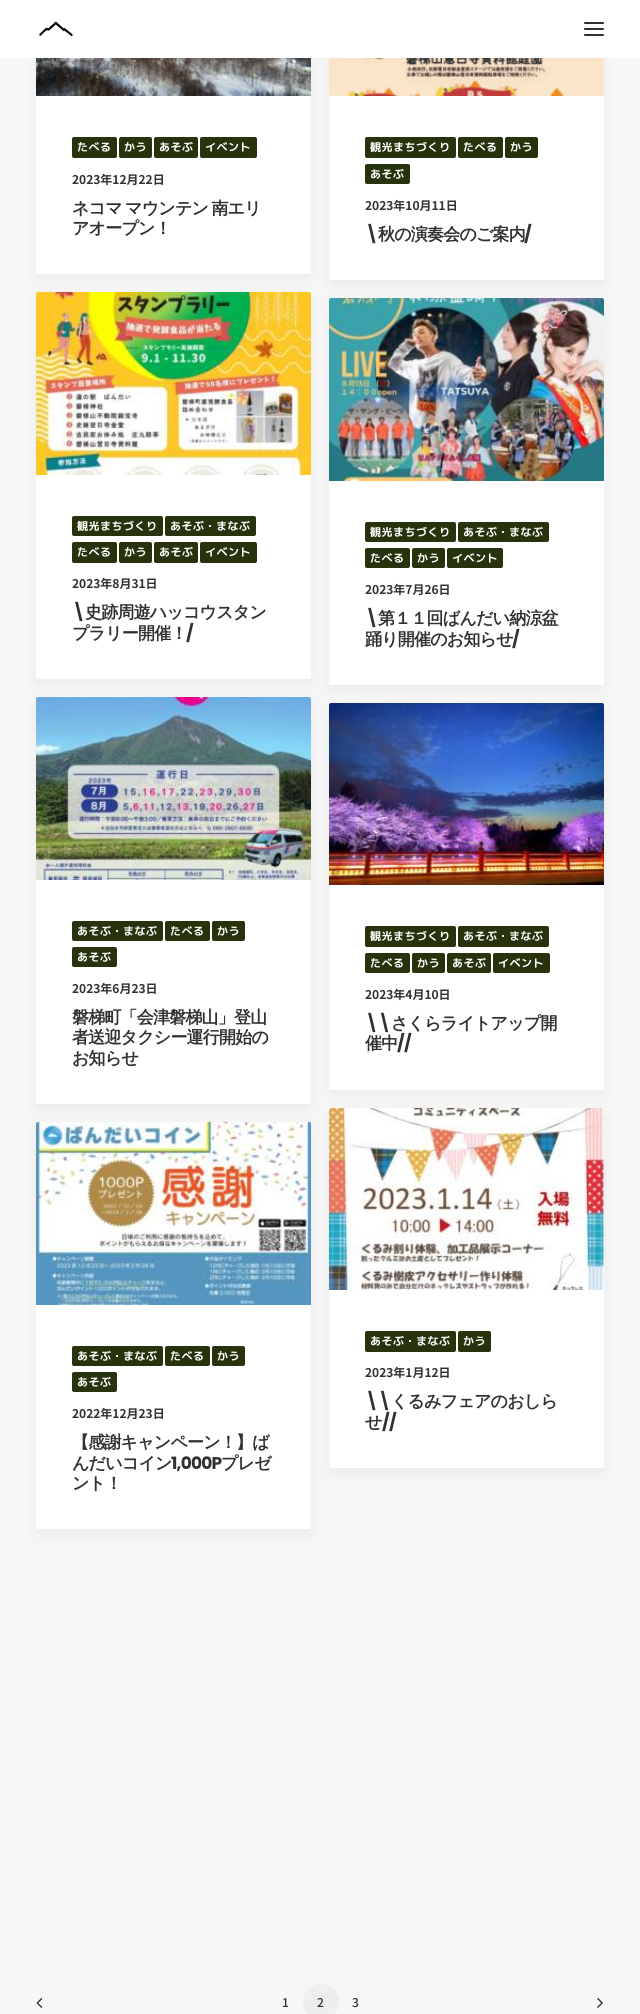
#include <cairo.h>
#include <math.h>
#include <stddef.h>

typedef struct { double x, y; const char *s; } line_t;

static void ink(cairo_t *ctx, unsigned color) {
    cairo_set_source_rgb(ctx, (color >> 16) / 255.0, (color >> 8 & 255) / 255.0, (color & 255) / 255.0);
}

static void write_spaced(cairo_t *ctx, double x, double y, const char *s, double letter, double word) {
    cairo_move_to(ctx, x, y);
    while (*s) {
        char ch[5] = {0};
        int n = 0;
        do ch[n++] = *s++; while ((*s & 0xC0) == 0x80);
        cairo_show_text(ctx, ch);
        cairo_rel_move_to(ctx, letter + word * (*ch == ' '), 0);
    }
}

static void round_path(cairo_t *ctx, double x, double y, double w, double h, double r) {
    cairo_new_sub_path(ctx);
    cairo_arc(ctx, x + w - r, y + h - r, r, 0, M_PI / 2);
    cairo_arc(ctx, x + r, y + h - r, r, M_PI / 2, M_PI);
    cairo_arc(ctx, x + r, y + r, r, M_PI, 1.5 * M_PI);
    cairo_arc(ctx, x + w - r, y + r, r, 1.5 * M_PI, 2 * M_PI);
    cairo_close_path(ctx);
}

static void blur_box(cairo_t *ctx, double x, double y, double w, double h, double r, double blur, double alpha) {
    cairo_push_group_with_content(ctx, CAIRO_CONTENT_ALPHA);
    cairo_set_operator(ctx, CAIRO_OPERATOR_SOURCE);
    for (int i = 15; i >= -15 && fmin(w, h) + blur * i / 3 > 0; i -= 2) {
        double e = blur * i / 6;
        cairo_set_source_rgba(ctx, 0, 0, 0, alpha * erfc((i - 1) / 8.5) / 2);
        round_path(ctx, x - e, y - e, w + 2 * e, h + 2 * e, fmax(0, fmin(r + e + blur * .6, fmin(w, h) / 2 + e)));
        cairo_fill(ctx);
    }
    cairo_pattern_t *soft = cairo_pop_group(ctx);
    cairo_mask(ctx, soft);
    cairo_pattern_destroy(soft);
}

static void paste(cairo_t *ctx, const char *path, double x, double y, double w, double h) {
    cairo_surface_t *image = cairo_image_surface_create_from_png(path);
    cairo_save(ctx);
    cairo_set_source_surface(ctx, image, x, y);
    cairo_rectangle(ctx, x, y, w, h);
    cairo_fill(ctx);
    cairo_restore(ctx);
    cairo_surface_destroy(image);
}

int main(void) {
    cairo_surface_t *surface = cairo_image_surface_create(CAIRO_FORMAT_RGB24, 640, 2014);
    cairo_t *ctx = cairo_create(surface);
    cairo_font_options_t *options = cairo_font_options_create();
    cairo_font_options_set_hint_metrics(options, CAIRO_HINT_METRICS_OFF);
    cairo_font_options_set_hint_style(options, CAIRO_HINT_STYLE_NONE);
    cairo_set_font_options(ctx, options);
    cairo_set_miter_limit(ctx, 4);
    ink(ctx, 0xF7F7F7);
    cairo_paint(ctx);
    ink(ctx, 0x000000);
    blur_box(ctx, 36, -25, 275, 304, 2, 7.5, 0.05);
    ink(ctx, 0xFFFFFF);
    round_path(ctx, 36, -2, 275, 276, 2);
    cairo_fill(ctx);
    paste(ctx, "media/2.png", 36, 58, 275, 38);
    ink(ctx, 0x000000);
    blur_box(ctx, 329, -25, 275, 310, 2, 7.5, 0.05);
    ink(ctx, 0xFFFFFF);
    round_path(ctx, 329, -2, 275, 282, 2);
    cairo_fill(ctx);
    cairo_rectangle(ctx, 0, 0, 640, 58);
    cairo_fill(ctx);
    paste(ctx, "media/1.png", 39, 21, 34, 16);
    ink(ctx, 0x303133);
    round_path(ctx, 584, 28, 20, 2, 1);
    cairo_fill(ctx);
    round_path(ctx, 584, 22, 20, 2, 1);
    cairo_fill(ctx);
    round_path(ctx, 584, 34, 20, 2, 1);
    cairo_fill(ctx);
    ink(ctx, 0x26330C);
    round_path(ctx, 72, 137, 45, 21, 2);
    cairo_fill(ctx);
    cairo_select_font_face(ctx, "M PLUS 1p", CAIRO_FONT_SLANT_NORMAL, CAIRO_FONT_WEIGHT_BOLD);
    cairo_set_font_size(ctx, 11);
    ink(ctx, 0xFFFFFF);
    write_spaced(ctx, 77, 151, "たべる", 0.5, 0);
    ink(ctx, 0x26330C);
    round_path(ctx, 119, 137, 33, 21, 2);
    cairo_fill(ctx);
    ink(ctx, 0xFFFFFF);
    write_spaced(ctx, 124, 151, "かう", 0.5, 0);
    ink(ctx, 0x26330C);
    round_path(ctx, 154, 137, 44, 21, 2);
    cairo_fill(ctx);
    ink(ctx, 0xFFFFFF);
    write_spaced(ctx, 159, 151, "あそぶ", 0.5, 0);
    ink(ctx, 0x26330C);
    round_path(ctx, 200, 137, 57, 21, 2);
    cairo_fill(ctx);
    ink(ctx, 0xFFFFFF);
    write_spaced(ctx, 205, 151, "イベント", 0.5, 0);
    cairo_select_font_face(ctx, "Noto Sans JP", CAIRO_FONT_SLANT_NORMAL, CAIRO_FONT_WEIGHT_BOLD);
    cairo_set_font_size(ctx, 12);
    ink(ctx, 0x303133);
    cairo_move_to(ctx, 72, 184);
    cairo_show_text(ctx, "2023年12月22日");
    cairo_select_font_face(ctx, "WenQuanYi Zen Hei", CAIRO_FONT_SLANT_NORMAL, CAIRO_FONT_WEIGHT_BOLD);
    cairo_set_font_size(ctx, 17);
    write_spaced(ctx, 72, 214, "ネコマ マウンテン 南エリ", -0.8, -1);
    write_spaced(ctx, 72, 234, "アオープン！", -0.8, 0);
    paste(ctx, "media/3.png", 329, 58, 275, 38);
    ink(ctx, 0x26330C);
    round_path(ctx, 365, 137, 91, 21, 2);
    cairo_fill(ctx);
    cairo_select_font_face(ctx, "M PLUS 1p", CAIRO_FONT_SLANT_NORMAL, CAIRO_FONT_WEIGHT_BOLD);
    cairo_set_font_size(ctx, 11);
    ink(ctx, 0xFFFFFF);
    write_spaced(ctx, 370, 151, "観光まちづくり", 0.5, 0);
    ink(ctx, 0x26330C);
    round_path(ctx, 458, 137, 45, 21, 2);
    cairo_fill(ctx);
    ink(ctx, 0xFFFFFF);
    write_spaced(ctx, 463, 151, "たべる", 0.5, 0);
    ink(ctx, 0x26330C);
    round_path(ctx, 505, 137, 33, 21, 2);
    cairo_fill(ctx);
    ink(ctx, 0xFFFFFF);
    write_spaced(ctx, 510, 151, "かう", 0.5, 0);
    ink(ctx, 0x26330C);
    round_path(ctx, 365, 164, 45, 20, 2);
    cairo_fill(ctx);
    ink(ctx, 0xFFFFFF);
    write_spaced(ctx, 370, 178, "あそぶ", 0.5, 0);
    cairo_select_font_face(ctx, "Noto Sans JP", CAIRO_FONT_SLANT_NORMAL, CAIRO_FONT_WEIGHT_BOLD);
    cairo_set_font_size(ctx, 12);
    ink(ctx, 0x303133);
    cairo_move_to(ctx, 365, 210);
    cairo_show_text(ctx, "2023年10月11日");
    cairo_select_font_face(ctx, "Poppins", CAIRO_FONT_SLANT_NORMAL, CAIRO_FONT_WEIGHT_BOLD);
    cairo_set_font_size(ctx, 17);
    write_spaced(ctx, 365, 240, "\\", -0.8, 0);
    cairo_select_font_face(ctx, "WenQuanYi Zen Hei", CAIRO_FONT_SLANT_NORMAL, CAIRO_FONT_WEIGHT_BOLD);
    write_spaced(ctx, 378, 240, "秋の演奏会のご案内", -0.8, 0);
    cairo_select_font_face(ctx, "Poppins", CAIRO_FONT_SLANT_NORMAL, CAIRO_FONT_WEIGHT_BOLD);
    write_spaced(ctx, 524, 240, "/", -0.8, 0);
    ink(ctx, 0x000000);
    blur_box(ctx, 36, 297, 275, 387, 2, 7.5, 0.05);
    ink(ctx, 0xFFFFFF);
    round_path(ctx, 36, 292, 275, 387, 2);
    cairo_fill(ctx);
    paste(ctx, "media/4.png", 36, 292, 275, 183);
    ink(ctx, 0x26330C);
    round_path(ctx, 72, 516, 91, 20, 2);
    cairo_fill(ctx);
    cairo_select_font_face(ctx, "M PLUS 1p", CAIRO_FONT_SLANT_NORMAL, CAIRO_FONT_WEIGHT_BOLD);
    cairo_set_font_size(ctx, 11);
    ink(ctx, 0xFFFFFF);
    write_spaced(ctx, 77, 530, "観光まちづくり", 0.5, 0);
    ink(ctx, 0x26330C);
    round_path(ctx, 165, 516, 91, 20, 2);
    cairo_fill(ctx);
    ink(ctx, 0xFFFFFF);
    write_spaced(ctx, 170, 530, "あそぶ・まなぶ", 0.5, 0);
    ink(ctx, 0x26330C);
    round_path(ctx, 72, 542, 45, 21, 2);
    cairo_fill(ctx);
    ink(ctx, 0xFFFFFF);
    write_spaced(ctx, 77, 556, "たべる", 0.5, 0);
    ink(ctx, 0x26330C);
    round_path(ctx, 119, 542, 33, 21, 2);
    cairo_fill(ctx);
    ink(ctx, 0xFFFFFF);
    write_spaced(ctx, 124, 556, "かう", 0.5, 0);
    ink(ctx, 0x26330C);
    round_path(ctx, 154, 542, 44, 21, 2);
    cairo_fill(ctx);
    ink(ctx, 0xFFFFFF);
    write_spaced(ctx, 159, 556, "あそぶ", 0.5, 0);
    ink(ctx, 0x26330C);
    round_path(ctx, 200, 542, 57, 21, 2);
    cairo_fill(ctx);
    ink(ctx, 0xFFFFFF);
    write_spaced(ctx, 205, 556, "イベント", 0.5, 0);
    cairo_select_font_face(ctx, "Noto Sans JP", CAIRO_FONT_SLANT_NORMAL, CAIRO_FONT_WEIGHT_BOLD);
    cairo_set_font_size(ctx, 12);
    ink(ctx, 0x303133);
    cairo_move_to(ctx, 72, 588);
    cairo_show_text(ctx, "2023年8月31日");
    cairo_select_font_face(ctx, "Poppins", CAIRO_FONT_SLANT_NORMAL, CAIRO_FONT_WEIGHT_BOLD);
    cairo_set_font_size(ctx, 17);
    write_spaced(ctx, 72, 618, "\\", -0.8, 0);
    cairo_select_font_face(ctx, "WenQuanYi Zen Hei", CAIRO_FONT_SLANT_NORMAL, CAIRO_FONT_WEIGHT_BOLD);
    write_spaced(ctx, 85, 618, "史跡周遊ハッコウスタン", -0.8, 0);
    write_spaced(ctx, 72, 639, "プラリー開催！", -0.8, 0);
    cairo_select_font_face(ctx, "Poppins", CAIRO_FONT_SLANT_NORMAL, CAIRO_FONT_WEIGHT_BOLD);
    write_spaced(ctx, 186, 639, "/", -0.8, 0);
    ink(ctx, 0x000000);
    blur_box(ctx, 329, 303, 275, 387, 2, 7.5, 0.05);
    ink(ctx, 0xFFFFFF);
    round_path(ctx, 329, 298, 275, 387, 2);
    cairo_fill(ctx);
    paste(ctx, "media/5.png", 329, 298, 275, 183);
    ink(ctx, 0x26330C);
    round_path(ctx, 365, 522, 91, 20, 2);
    cairo_fill(ctx);
    cairo_select_font_face(ctx, "M PLUS 1p", CAIRO_FONT_SLANT_NORMAL, CAIRO_FONT_WEIGHT_BOLD);
    cairo_set_font_size(ctx, 11);
    ink(ctx, 0xFFFFFF);
    write_spaced(ctx, 370, 536, "観光まちづくり", 0.5, 0);
    ink(ctx, 0x26330C);
    round_path(ctx, 458, 522, 91, 20, 2);
    cairo_fill(ctx);
    ink(ctx, 0xFFFFFF);
    write_spaced(ctx, 463, 536, "あそぶ・まなぶ", 0.5, 0);
    ink(ctx, 0x26330C);
    round_path(ctx, 365, 548, 45, 20, 2);
    cairo_fill(ctx);
    ink(ctx, 0xFFFFFF);
    write_spaced(ctx, 370, 562, "たべる", 0.5, 0);
    ink(ctx, 0x26330C);
    round_path(ctx, 412, 548, 33, 20, 2);
    cairo_fill(ctx);
    ink(ctx, 0xFFFFFF);
    write_spaced(ctx, 417, 562, "かう", 0.5, 0);
    ink(ctx, 0x26330C);
    round_path(ctx, 447, 548, 56, 20, 2);
    cairo_fill(ctx);
    ink(ctx, 0xFFFFFF);
    write_spaced(ctx, 452, 562, "イベント", 0.5, 0);
    cairo_select_font_face(ctx, "Noto Sans JP", CAIRO_FONT_SLANT_NORMAL, CAIRO_FONT_WEIGHT_BOLD);
    cairo_set_font_size(ctx, 12);
    ink(ctx, 0x303133);
    cairo_move_to(ctx, 365, 594);
    cairo_show_text(ctx, "2023年7月26日");
    cairo_select_font_face(ctx, "Poppins", CAIRO_FONT_SLANT_NORMAL, CAIRO_FONT_WEIGHT_BOLD);
    cairo_set_font_size(ctx, 17);
    write_spaced(ctx, 365, 624, "\\", -0.8, 0);
    cairo_select_font_face(ctx, "WenQuanYi Zen Hei", CAIRO_FONT_SLANT_NORMAL, CAIRO_FONT_WEIGHT_BOLD);
    write_spaced(ctx, 378, 624, "第１１回ばんだい納涼盆", -0.8, 0);
    write_spaced(ctx, 365, 645, "踊り開催のお知らせ", -0.8, 0);
    cairo_select_font_face(ctx, "Poppins", CAIRO_FONT_SLANT_NORMAL, CAIRO_FONT_WEIGHT_BOLD);
    write_spaced(ctx, 512, 645, "/", -0.8, 0);
    ink(ctx, 0x000000);
    blur_box(ctx, 36, 702, 275, 407, 2, 7.5, 0.05);
    ink(ctx, 0xFFFFFF);
    round_path(ctx, 36, 697, 275, 407, 2);
    cairo_fill(ctx);
    paste(ctx, "media/6.png", 36, 697, 275, 183);
    ink(ctx, 0x26330C);
    round_path(ctx, 72, 921, 91, 20, 2);
    cairo_fill(ctx);
    cairo_select_font_face(ctx, "M PLUS 1p", CAIRO_FONT_SLANT_NORMAL, CAIRO_FONT_WEIGHT_BOLD);
    cairo_set_font_size(ctx, 11);
    ink(ctx, 0xFFFFFF);
    write_spaced(ctx, 77, 935, "あそぶ・まなぶ", 0.5, 0);
    ink(ctx, 0x26330C);
    round_path(ctx, 165, 921, 45, 20, 2);
    cairo_fill(ctx);
    ink(ctx, 0xFFFFFF);
    write_spaced(ctx, 170, 935, "たべる", 0.5, 0);
    ink(ctx, 0x26330C);
    round_path(ctx, 212, 921, 33, 20, 2);
    cairo_fill(ctx);
    ink(ctx, 0xFFFFFF);
    write_spaced(ctx, 217, 935, "かう", 0.5, 0);
    ink(ctx, 0x26330C);
    round_path(ctx, 72, 947, 45, 20, 2);
    cairo_fill(ctx);
    ink(ctx, 0xFFFFFF);
    write_spaced(ctx, 77, 961, "あそぶ", 0.5, 0);
    cairo_select_font_face(ctx, "Noto Sans JP", CAIRO_FONT_SLANT_NORMAL, CAIRO_FONT_WEIGHT_BOLD);
    cairo_set_font_size(ctx, 12);
    ink(ctx, 0x303133);
    cairo_move_to(ctx, 72, 993);
    cairo_show_text(ctx, "2023年6月23日");
    cairo_select_font_face(ctx, "WenQuanYi Zen Hei", CAIRO_FONT_SLANT_NORMAL, CAIRO_FONT_WEIGHT_BOLD);
    cairo_set_font_size(ctx, 17);
    {
        static const line_t items[] = {
            {72, 1023, "磐梯町「会津磐梯山」登山"},
            {72, 1043, "者送迎タクシー運行開始の"},
            {72, 1064, "お知らせ"},
        };
        for (size_t i = 0; i < sizeof items / sizeof *items; i++) {
            write_spaced(ctx, items[i].x, items[i].y, items[i].s, -0.8, 0);
        }
    }
    ink(ctx, 0x000000);
    blur_box(ctx, 329, 708, 275, 387, 2, 7.5, 0.05);
    ink(ctx, 0xFFFFFF);
    round_path(ctx, 329, 703, 275, 387, 2);
    cairo_fill(ctx);
    paste(ctx, "media/7.png", 329, 703, 275, 182);
    ink(ctx, 0x26330C);
    round_path(ctx, 365, 926, 91, 21, 2);
    cairo_fill(ctx);
    cairo_select_font_face(ctx, "M PLUS 1p", CAIRO_FONT_SLANT_NORMAL, CAIRO_FONT_WEIGHT_BOLD);
    cairo_set_font_size(ctx, 11);
    ink(ctx, 0xFFFFFF);
    write_spaced(ctx, 370, 940, "観光まちづくり", 0.5, 0);
    ink(ctx, 0x26330C);
    round_path(ctx, 458, 926, 91, 21, 2);
    cairo_fill(ctx);
    ink(ctx, 0xFFFFFF);
    write_spaced(ctx, 463, 940, "あそぶ・まなぶ", 0.5, 0);
    ink(ctx, 0x26330C);
    round_path(ctx, 365, 953, 45, 20, 2);
    cairo_fill(ctx);
    ink(ctx, 0xFFFFFF);
    write_spaced(ctx, 370, 967, "たべる", 0.5, 0);
    ink(ctx, 0x26330C);
    round_path(ctx, 412, 953, 33, 20, 2);
    cairo_fill(ctx);
    ink(ctx, 0xFFFFFF);
    write_spaced(ctx, 417, 967, "かう", 0.5, 0);
    ink(ctx, 0x26330C);
    round_path(ctx, 447, 953, 44, 20, 2);
    cairo_fill(ctx);
    ink(ctx, 0xFFFFFF);
    write_spaced(ctx, 452, 967, "あそぶ", 0.5, 0);
    ink(ctx, 0x26330C);
    round_path(ctx, 493, 953, 57, 20, 2);
    cairo_fill(ctx);
    ink(ctx, 0xFFFFFF);
    write_spaced(ctx, 498, 967, "イベント", 0.5, 0);
    cairo_select_font_face(ctx, "Noto Sans JP", CAIRO_FONT_SLANT_NORMAL, CAIRO_FONT_WEIGHT_BOLD);
    cairo_set_font_size(ctx, 12);
    ink(ctx, 0x303133);
    cairo_move_to(ctx, 365, 999);
    cairo_show_text(ctx, "2023年4月10日");
    cairo_select_font_face(ctx, "Poppins", CAIRO_FONT_SLANT_NORMAL, CAIRO_FONT_WEIGHT_BOLD);
    cairo_set_font_size(ctx, 17);
    write_spaced(ctx, 365, 1029, "\\\\", -0.8, 0);
    cairo_select_font_face(ctx, "WenQuanYi Zen Hei", CAIRO_FONT_SLANT_NORMAL, CAIRO_FONT_WEIGHT_BOLD);
    write_spaced(ctx, 391, 1029, "さくらライトアップ開", -0.8, 0);
    write_spaced(ctx, 365, 1049, "催中", -0.8, 0);
    cairo_select_font_face(ctx, "Poppins", CAIRO_FONT_SLANT_NORMAL, CAIRO_FONT_WEIGHT_BOLD);
    write_spaced(ctx, 397, 1049, "//", -0.8, 0);
    ink(ctx, 0x000000);
    blur_box(ctx, 329, 1113, 275, 360, 2, 7.5, 0.05);
    ink(ctx, 0xFFFFFF);
    round_path(ctx, 329, 1108, 275, 360, 2);
    cairo_fill(ctx);
    paste(ctx, "media/9.png", 329, 1108, 275, 182);
    ink(ctx, 0x000000);
    blur_box(ctx, 36, 1127, 275, 407, 2, 7.5, 0.05);
    ink(ctx, 0xFFFFFF);
    round_path(ctx, 36, 1122, 275, 407, 2);
    cairo_fill(ctx);
    paste(ctx, "media/8.png", 36, 1122, 275, 183);
    ink(ctx, 0x26330C);
    round_path(ctx, 72, 1346, 91, 20, 2);
    cairo_fill(ctx);
    cairo_select_font_face(ctx, "M PLUS 1p", CAIRO_FONT_SLANT_NORMAL, CAIRO_FONT_WEIGHT_BOLD);
    cairo_set_font_size(ctx, 11);
    ink(ctx, 0xFFFFFF);
    write_spaced(ctx, 77, 1360, "あそぶ・まなぶ", 0.5, 0);
    ink(ctx, 0x26330C);
    round_path(ctx, 165, 1346, 45, 20, 2);
    cairo_fill(ctx);
    ink(ctx, 0xFFFFFF);
    write_spaced(ctx, 170, 1360, "たべる", 0.5, 0);
    ink(ctx, 0x26330C);
    round_path(ctx, 212, 1346, 33, 20, 2);
    cairo_fill(ctx);
    ink(ctx, 0xFFFFFF);
    write_spaced(ctx, 217, 1360, "かう", 0.5, 0);
    ink(ctx, 0x26330C);
    round_path(ctx, 72, 1372, 45, 20, 2);
    cairo_fill(ctx);
    ink(ctx, 0xFFFFFF);
    write_spaced(ctx, 77, 1386, "あそぶ", 0.5, 0);
    cairo_select_font_face(ctx, "Noto Sans JP", CAIRO_FONT_SLANT_NORMAL, CAIRO_FONT_WEIGHT_BOLD);
    cairo_set_font_size(ctx, 12);
    ink(ctx, 0x303133);
    cairo_move_to(ctx, 72, 1418);
    cairo_show_text(ctx, "2022年12月23日");
    cairo_select_font_face(ctx, "WenQuanYi Zen Hei", CAIRO_FONT_SLANT_NORMAL, CAIRO_FONT_WEIGHT_BOLD);
    cairo_set_font_size(ctx, 17);
    write_spaced(ctx, 72, 1448, "【感謝キャンペーン！】ば", -0.8, 0);
    write_spaced(ctx, 72, 1469, "んだいコイン", -0.8, 0);
    cairo_select_font_face(ctx, "Poppins", CAIRO_FONT_SLANT_NORMAL, CAIRO_FONT_WEIGHT_BOLD);
    write_spaced(ctx, 171, 1469, "1,000P", -0.8, 0);
    cairo_select_font_face(ctx, "WenQuanYi Zen Hei", CAIRO_FONT_SLANT_NORMAL, CAIRO_FONT_WEIGHT_BOLD);
    write_spaced(ctx, 221, 1469, "プレゼ", -0.8, 0);
    write_spaced(ctx, 72, 1489, "ント！", -0.8, 0);
    ink(ctx, 0x26330C);
    round_path(ctx, 365, 1331, 91, 21, 2);
    cairo_fill(ctx);
    cairo_select_font_face(ctx, "M PLUS 1p", CAIRO_FONT_SLANT_NORMAL, CAIRO_FONT_WEIGHT_BOLD);
    cairo_set_font_size(ctx, 11);
    ink(ctx, 0xFFFFFF);
    write_spaced(ctx, 370, 1345, "あそぶ・まなぶ", 0.5, 0);
    ink(ctx, 0x26330C);
    round_path(ctx, 458, 1331, 33, 21, 2);
    cairo_fill(ctx);
    ink(ctx, 0xFFFFFF);
    write_spaced(ctx, 463, 1345, "かう", 0.5, 0);
    cairo_select_font_face(ctx, "Noto Sans JP", CAIRO_FONT_SLANT_NORMAL, CAIRO_FONT_WEIGHT_BOLD);
    cairo_set_font_size(ctx, 12);
    ink(ctx, 0x303133);
    cairo_move_to(ctx, 365, 1377);
    cairo_show_text(ctx, "2023年1月12日");
    cairo_select_font_face(ctx, "Poppins", CAIRO_FONT_SLANT_NORMAL, CAIRO_FONT_WEIGHT_BOLD);
    cairo_set_font_size(ctx, 17);
    write_spaced(ctx, 365, 1407, "\\\\", -0.8, 0);
    cairo_select_font_face(ctx, "WenQuanYi Zen Hei", CAIRO_FONT_SLANT_NORMAL, CAIRO_FONT_WEIGHT_BOLD);
    write_spaced(ctx, 391, 1407, "くるみフェアのおしら", -0.8, 0);
    write_spaced(ctx, 365, 1428, "せ", -0.8, 0);
    cairo_select_font_face(ctx, "Poppins", CAIRO_FONT_SLANT_NORMAL, CAIRO_FONT_WEIGHT_BOLD);
    write_spaced(ctx, 382, 1428, "//", -0.8, 0);
    paste(ctx, "media/10.png", 36, 1997, 7, 11);
    cairo_select_font_face(ctx, "Noto Sans JP Medium", CAIRO_FONT_SLANT_NORMAL, CAIRO_FONT_WEIGHT_NORMAL);
    cairo_set_font_size(ctx, 12);
    cairo_move_to(ctx, 282, 2007);
    cairo_show_text(ctx, "1");
    ink(ctx, 0xEEEEEE);
    cairo_new_path(ctx);
    cairo_arc(ctx, 321, 2002, 18, 0, 2 * M_PI);
    cairo_fill(ctx);
    ink(ctx, 0x303133);
    cairo_move_to(ctx, 317, 2007);
    cairo_show_text(ctx, "2");
    cairo_move_to(ctx, 352, 2007);
    cairo_show_text(ctx, "3");
    paste(ctx, "media/11.png", 597, 1998, 6, 10);
    cairo_surface_write_to_png(surface, "image.png");
    cairo_font_options_destroy(options);
    cairo_destroy(ctx);
    cairo_surface_destroy(surface);
    return 0;
}
